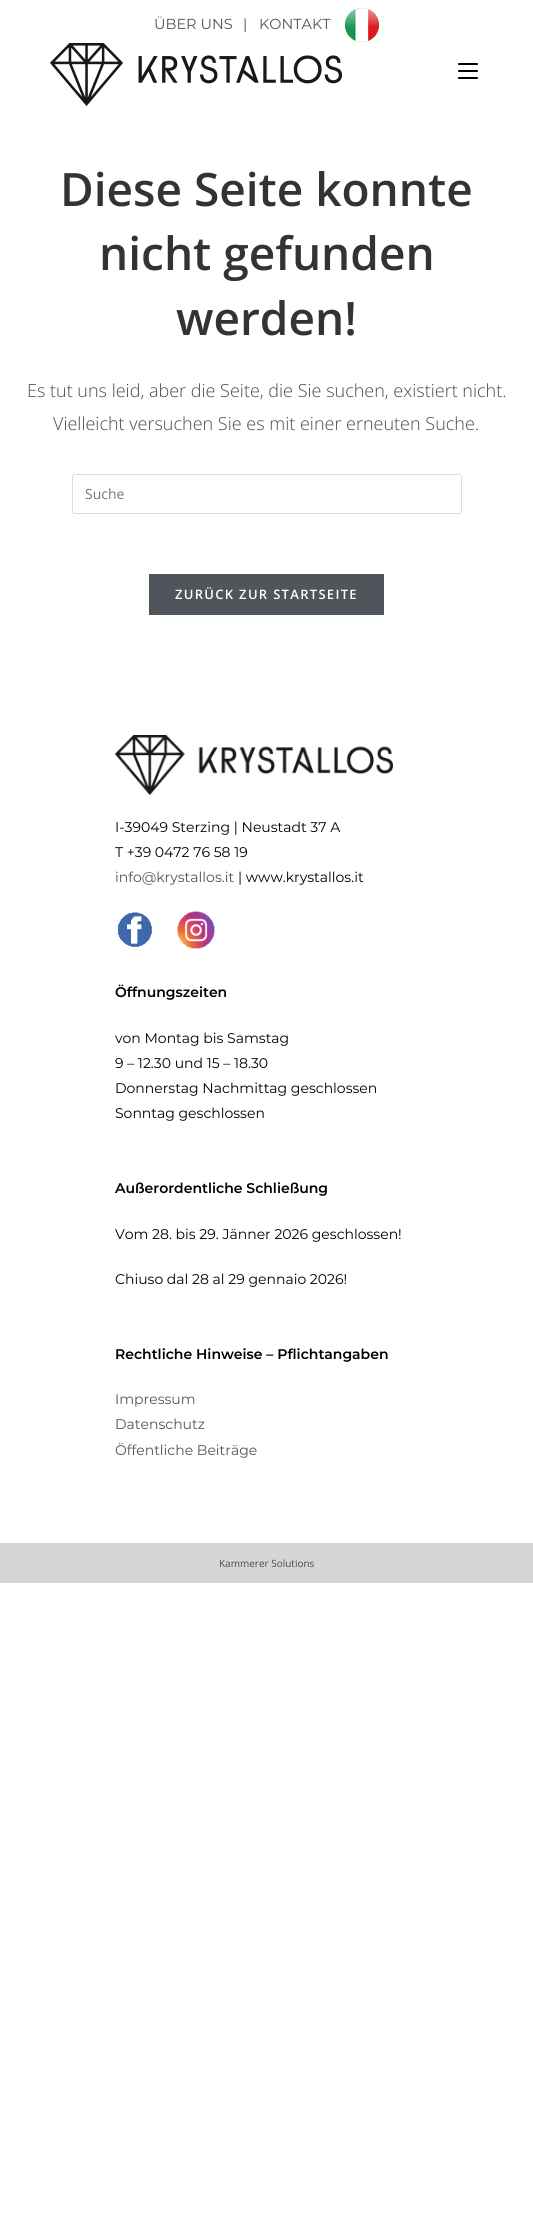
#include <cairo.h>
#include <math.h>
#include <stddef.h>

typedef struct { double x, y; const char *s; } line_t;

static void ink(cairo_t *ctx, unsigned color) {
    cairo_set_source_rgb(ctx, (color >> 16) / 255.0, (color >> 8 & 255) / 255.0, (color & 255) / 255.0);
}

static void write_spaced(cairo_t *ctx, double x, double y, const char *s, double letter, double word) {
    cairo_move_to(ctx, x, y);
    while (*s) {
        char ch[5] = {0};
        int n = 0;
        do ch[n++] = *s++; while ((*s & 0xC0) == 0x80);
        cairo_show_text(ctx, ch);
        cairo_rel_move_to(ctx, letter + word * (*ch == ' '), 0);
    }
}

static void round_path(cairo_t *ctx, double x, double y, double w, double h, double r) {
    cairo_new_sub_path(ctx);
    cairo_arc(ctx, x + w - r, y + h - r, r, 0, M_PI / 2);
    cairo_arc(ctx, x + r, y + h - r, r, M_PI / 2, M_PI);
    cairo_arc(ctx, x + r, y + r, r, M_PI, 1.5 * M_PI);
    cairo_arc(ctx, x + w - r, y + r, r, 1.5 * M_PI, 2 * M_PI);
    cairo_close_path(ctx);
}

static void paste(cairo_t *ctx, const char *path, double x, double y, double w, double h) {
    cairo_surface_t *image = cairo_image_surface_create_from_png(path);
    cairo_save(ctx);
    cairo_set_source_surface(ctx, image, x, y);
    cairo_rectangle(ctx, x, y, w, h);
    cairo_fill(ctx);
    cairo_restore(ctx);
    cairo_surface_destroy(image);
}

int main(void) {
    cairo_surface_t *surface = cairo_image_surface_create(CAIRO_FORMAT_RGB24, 533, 2233);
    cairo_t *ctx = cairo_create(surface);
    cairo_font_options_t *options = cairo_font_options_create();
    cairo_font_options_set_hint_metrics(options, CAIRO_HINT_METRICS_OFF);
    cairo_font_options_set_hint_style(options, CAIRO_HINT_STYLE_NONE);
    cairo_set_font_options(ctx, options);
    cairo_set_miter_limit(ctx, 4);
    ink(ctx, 0xFFFFFF);
    cairo_paint(ctx);
    cairo_select_font_face(ctx, "Montserrat", CAIRO_FONT_SLANT_NORMAL, CAIRO_FONT_WEIGHT_NORMAL);
    cairo_set_font_size(ctx, 14.5);
    ink(ctx, 0x50555C);
    cairo_move_to(ctx, 154, 29);
    cairo_show_text(ctx, "ÜBER UNS");
    ink(ctx, 0x4A4A4A);
    cairo_move_to(ctx, 243, 29);
    cairo_show_text(ctx, "|");
    ink(ctx, 0x50555C);
    cairo_move_to(ctx, 259, 29);
    cairo_show_text(ctx, "KONTAKT");
    paste(ctx, "media/1.png", 345, 8, 34, 34);
    paste(ctx, "media/2.png", 50, 43, 292, 63);
    ink(ctx, 0x000000);
    round_path(ctx, 458, 70, 20, 2, 1);
    cairo_fill(ctx);
    round_path(ctx, 458, 63, 20, 2, 1);
    cairo_fill(ctx);
    round_path(ctx, 458, 77, 20, 2, 1);
    cairo_fill(ctx);
    cairo_select_font_face(ctx, "Open Sans SemiBold", CAIRO_FONT_SLANT_NORMAL, CAIRO_FONT_WEIGHT_NORMAL);
    cairo_set_font_size(ctx, 46);
    ink(ctx, 0x333333);
    {
        static const line_t items[] = {
            {60, 206, "Diese Seite konnte"},
            {99, 270, "nicht gefunden"},
            {176, 335, "werden!"},
        };
        for (size_t i = 0; i < sizeof items / sizeof *items; i++) {
            cairo_move_to(ctx, items[i].x, items[i].y);
            cairo_show_text(ctx, items[i].s);
        }
    }
    cairo_select_font_face(ctx, "Open Sans Light", CAIRO_FONT_SLANT_NORMAL, CAIRO_FONT_WEIGHT_NORMAL);
    cairo_set_font_size(ctx, 18);
    ink(ctx, 0x4A4A4A);
    cairo_move_to(ctx, 27, 397);
    cairo_show_text(ctx, "Es tut uns leid, aber die Seite, die Sie suchen, existiert nicht.");
    cairo_move_to(ctx, 53, 430);
    cairo_show_text(ctx, "Vielleicht versuchen Sie es mit einer erneuten Suche.");
    round_path(ctx, 72.5, 474.5, 389, 39, 2.5);
    ink(ctx, 0xDDDDDD);
    cairo_set_line_width(ctx, 1);
    cairo_stroke(ctx);
    cairo_select_font_face(ctx, "Open Sans", CAIRO_FONT_SLANT_NORMAL, CAIRO_FONT_WEIGHT_NORMAL);
    cairo_set_font_size(ctx, 14);
    ink(ctx, 0x757575);
    cairo_move_to(ctx, 85, 499);
    cairo_show_text(ctx, "Suche");
    ink(ctx, 0x50555C);
    cairo_rectangle(ctx, 149, 574, 235, 41);
    cairo_fill(ctx);
    cairo_select_font_face(ctx, "Open Sans SemiBold", CAIRO_FONT_SLANT_NORMAL, CAIRO_FONT_WEIGHT_NORMAL);
    cairo_set_font_size(ctx, 13);
    ink(ctx, 0xFFFFFF);
    write_spaced(ctx, 175, 599, "ZURÜCK ZUR STARTSEITE", 1.3, 0);
    paste(ctx, "media/3.png", 115, 735, 278, 60);
    cairo_select_font_face(ctx, "Montserrat", CAIRO_FONT_SLANT_NORMAL, CAIRO_FONT_WEIGHT_NORMAL);
    cairo_set_font_size(ctx, 14);
    ink(ctx, 0x000000);
    cairo_move_to(ctx, 115, 832);
    cairo_show_text(ctx, "I-39049 Sterzing | Neustadt 37 A");
    cairo_move_to(ctx, 115, 857);
    cairo_show_text(ctx, "T +39 0472 76 58 19");
    ink(ctx, 0x555555);
    cairo_move_to(ctx, 115, 882);
    cairo_show_text(ctx, "info@krystallos.it");
    ink(ctx, 0x000000);
    cairo_move_to(ctx, 238, 882);
    cairo_show_text(ctx, "| www.krystallos.it");
    paste(ctx, "media/4.png", 118, 912, 34, 35);
    paste(ctx, "media/5.png", 177, 911, 38, 38);
    cairo_select_font_face(ctx, "Montserrat SemiBold", CAIRO_FONT_SLANT_NORMAL, CAIRO_FONT_WEIGHT_NORMAL);
    cairo_move_to(ctx, 115, 997);
    cairo_show_text(ctx, "Öffnungszeiten");
    cairo_select_font_face(ctx, "Montserrat", CAIRO_FONT_SLANT_NORMAL, CAIRO_FONT_WEIGHT_NORMAL);
    {
        static const line_t items[] = {
            {115, 1043, "von Montag bis Samstag"},
            {115, 1068, "9 – 12.30 und 15 – 18.30"},
            {115, 1093, "Donnerstag Nachmittag geschlossen"},
            {115, 1118, "Sonntag geschlossen"},
        };
        for (size_t i = 0; i < sizeof items / sizeof *items; i++) {
            cairo_move_to(ctx, items[i].x, items[i].y);
            cairo_show_text(ctx, items[i].s);
        }
    }
    cairo_select_font_face(ctx, "Montserrat SemiBold", CAIRO_FONT_SLANT_NORMAL, CAIRO_FONT_WEIGHT_NORMAL);
    cairo_move_to(ctx, 115, 1193);
    cairo_show_text(ctx, "Außerordentliche Schließung");
    cairo_select_font_face(ctx, "Montserrat", CAIRO_FONT_SLANT_NORMAL, CAIRO_FONT_WEIGHT_NORMAL);
    cairo_move_to(ctx, 115, 1239);
    cairo_show_text(ctx, "Vom 28. bis 29. Jänner 2026 geschlossen!");
    cairo_move_to(ctx, 115, 1284);
    cairo_show_text(ctx, "Chiuso dal 28 al 29 gennaio 2026!");
    cairo_select_font_face(ctx, "Montserrat SemiBold", CAIRO_FONT_SLANT_NORMAL, CAIRO_FONT_WEIGHT_NORMAL);
    cairo_move_to(ctx, 115, 1359);
    cairo_show_text(ctx, "Rechtliche Hinweise – Pflichtangaben");
    cairo_select_font_face(ctx, "Montserrat", CAIRO_FONT_SLANT_NORMAL, CAIRO_FONT_WEIGHT_NORMAL);
    ink(ctx, 0x555555);
    {
        static const line_t items[] = {
            {115, 1404, "Impressum"},
            {115, 1429, "Datenschutz"},
            {115, 1455, "Öffentliche Beiträge"},
        };
        for (size_t i = 0; i < sizeof items / sizeof *items; i++) {
            cairo_move_to(ctx, items[i].x, items[i].y);
            cairo_show_text(ctx, items[i].s);
        }
    }
    ink(ctx, 0xD6D6D6);
    cairo_rectangle(ctx, 0, 1543, 533, 40);
    cairo_fill(ctx);
    cairo_select_font_face(ctx, "Open Sans", CAIRO_FONT_SLANT_NORMAL, CAIRO_FONT_WEIGHT_NORMAL);
    cairo_set_font_size(ctx, 10);
    ink(ctx, 0x4A4A4A);
    cairo_move_to(ctx, 219, 1567);
    cairo_show_text(ctx, "Kammerer Solutions");
    cairo_surface_write_to_png(surface, "image.png");
    cairo_font_options_destroy(options);
    cairo_destroy(ctx);
    cairo_surface_destroy(surface);
    return 0;
}
